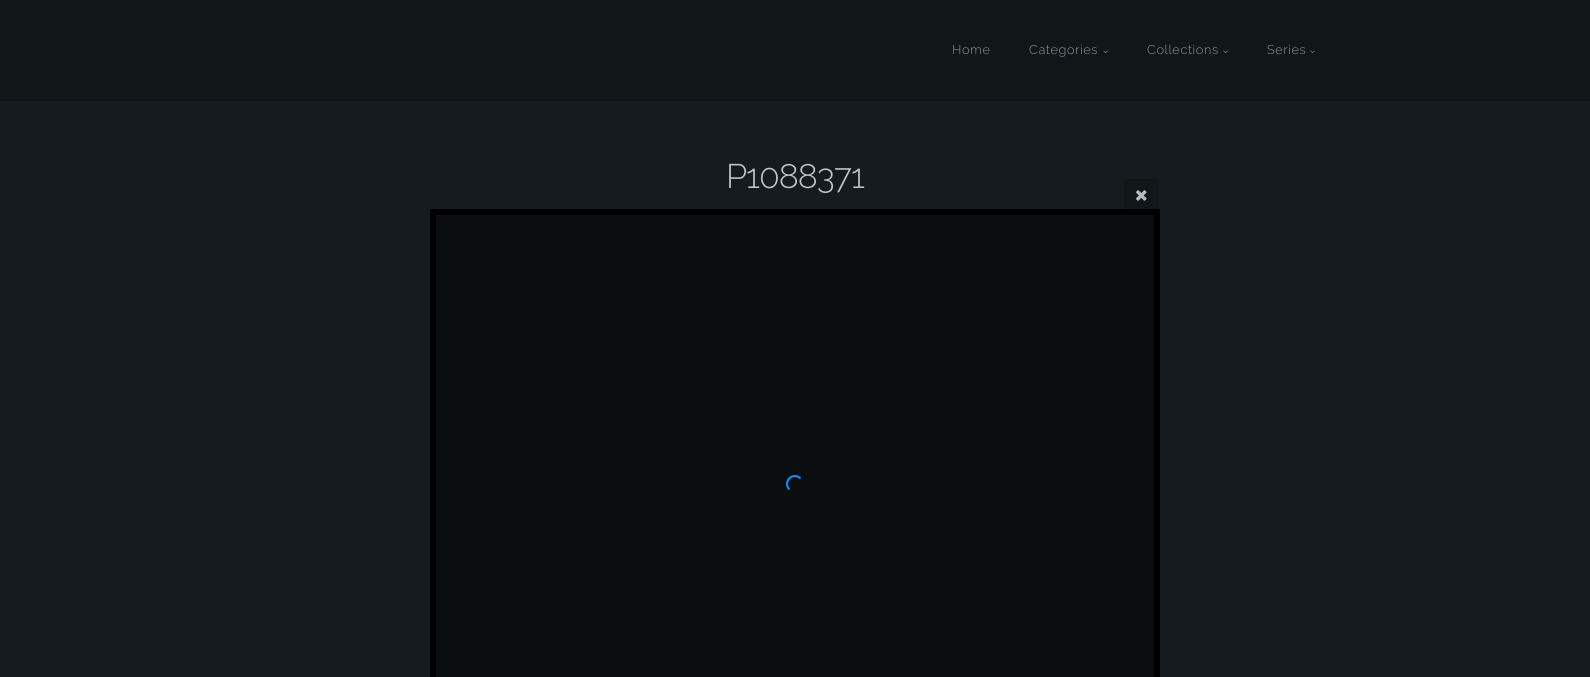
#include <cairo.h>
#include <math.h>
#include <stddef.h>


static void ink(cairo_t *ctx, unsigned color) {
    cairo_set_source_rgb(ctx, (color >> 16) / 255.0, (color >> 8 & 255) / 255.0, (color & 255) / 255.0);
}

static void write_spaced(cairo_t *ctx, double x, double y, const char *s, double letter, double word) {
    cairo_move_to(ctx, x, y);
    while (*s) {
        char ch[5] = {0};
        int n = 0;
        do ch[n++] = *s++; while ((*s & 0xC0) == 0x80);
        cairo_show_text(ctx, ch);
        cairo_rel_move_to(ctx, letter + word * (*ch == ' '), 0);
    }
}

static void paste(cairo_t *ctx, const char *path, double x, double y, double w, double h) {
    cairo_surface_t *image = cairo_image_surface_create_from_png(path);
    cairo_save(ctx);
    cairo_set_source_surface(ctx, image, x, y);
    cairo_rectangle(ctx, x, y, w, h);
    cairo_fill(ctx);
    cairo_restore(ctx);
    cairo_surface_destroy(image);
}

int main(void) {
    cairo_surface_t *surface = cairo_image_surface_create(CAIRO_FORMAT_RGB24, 1590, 677);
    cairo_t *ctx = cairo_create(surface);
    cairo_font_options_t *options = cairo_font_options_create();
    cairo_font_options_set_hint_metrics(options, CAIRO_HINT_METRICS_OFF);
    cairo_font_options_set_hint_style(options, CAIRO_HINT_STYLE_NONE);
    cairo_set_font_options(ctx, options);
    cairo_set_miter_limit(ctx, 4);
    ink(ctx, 0x151B1E);
    cairo_paint(ctx);
    ink(ctx, 0x111618);
    cairo_rectangle(ctx, 0, 0, 1590, 101);
    cairo_fill(ctx);
    cairo_select_font_face(ctx, "Raleway Thin", CAIRO_FONT_SLANT_NORMAL, CAIRO_FONT_WEIGHT_NORMAL);
    cairo_set_font_size(ctx, 12.75);
    ink(ctx, 0x8B97A0);
    write_spaced(ctx, 952, 54, "Home", 0.6, 0);
    write_spaced(ctx, 1029, 54, "Categories", 0.6, 0);
    paste(ctx, "media/1.png", 1103, 50, 5, 3);
    write_spaced(ctx, 1147, 54, "Collections", 0.6, 0);
    paste(ctx, "media/2.png", 1223, 50, 5, 3);
    write_spaced(ctx, 1267, 54, "Series", 0.6, 0);
    paste(ctx, "media/1.png", 1310, 50, 5, 3);
    cairo_set_font_size(ctx, 34);
    ink(ctx, 0xBFC6CB);
    write_spaced(ctx, 726, 188, "P1088371", -1, 0);
    ink(ctx, 0x111618);
    cairo_new_path(ctx);
    cairo_move_to(ctx, 1127, 179);
    cairo_line_to(ctx, 1156, 179);
    cairo_curve_to(ctx, 1157.5, 179, 1159, 180.5, 1159, 182);
    cairo_line_to(ctx, 1159, 209);
    cairo_line_to(ctx, 1124, 209);
    cairo_line_to(ctx, 1124, 182);
    cairo_curve_to(ctx, 1124, 180.5, 1125.5, 179, 1127, 179);
    cairo_close_path(ctx);
    cairo_fill(ctx);
    paste(ctx, "media/3.png", 1136, 190, 11, 11);
    ink(ctx, 0x000000);
    cairo_rectangle(ctx, 430, 209, 730, 468);
    cairo_fill(ctx);
    ink(ctx, 0x0B0E0F);
    cairo_rectangle(ctx, 436, 215, 718, 462);
    cairo_fill(ctx);
    cairo_new_path(ctx);
    cairo_move_to(ctx, 789.5, 489.5);
    cairo_curve_to(ctx, 782, 482, 793, 471, 800.5, 478.5);
    ink(ctx, 0x009AFF);
    cairo_stroke(ctx);
    cairo_surface_write_to_png(surface, "image.png");
    cairo_font_options_destroy(options);
    cairo_destroy(ctx);
    cairo_surface_destroy(surface);
    return 0;
}
